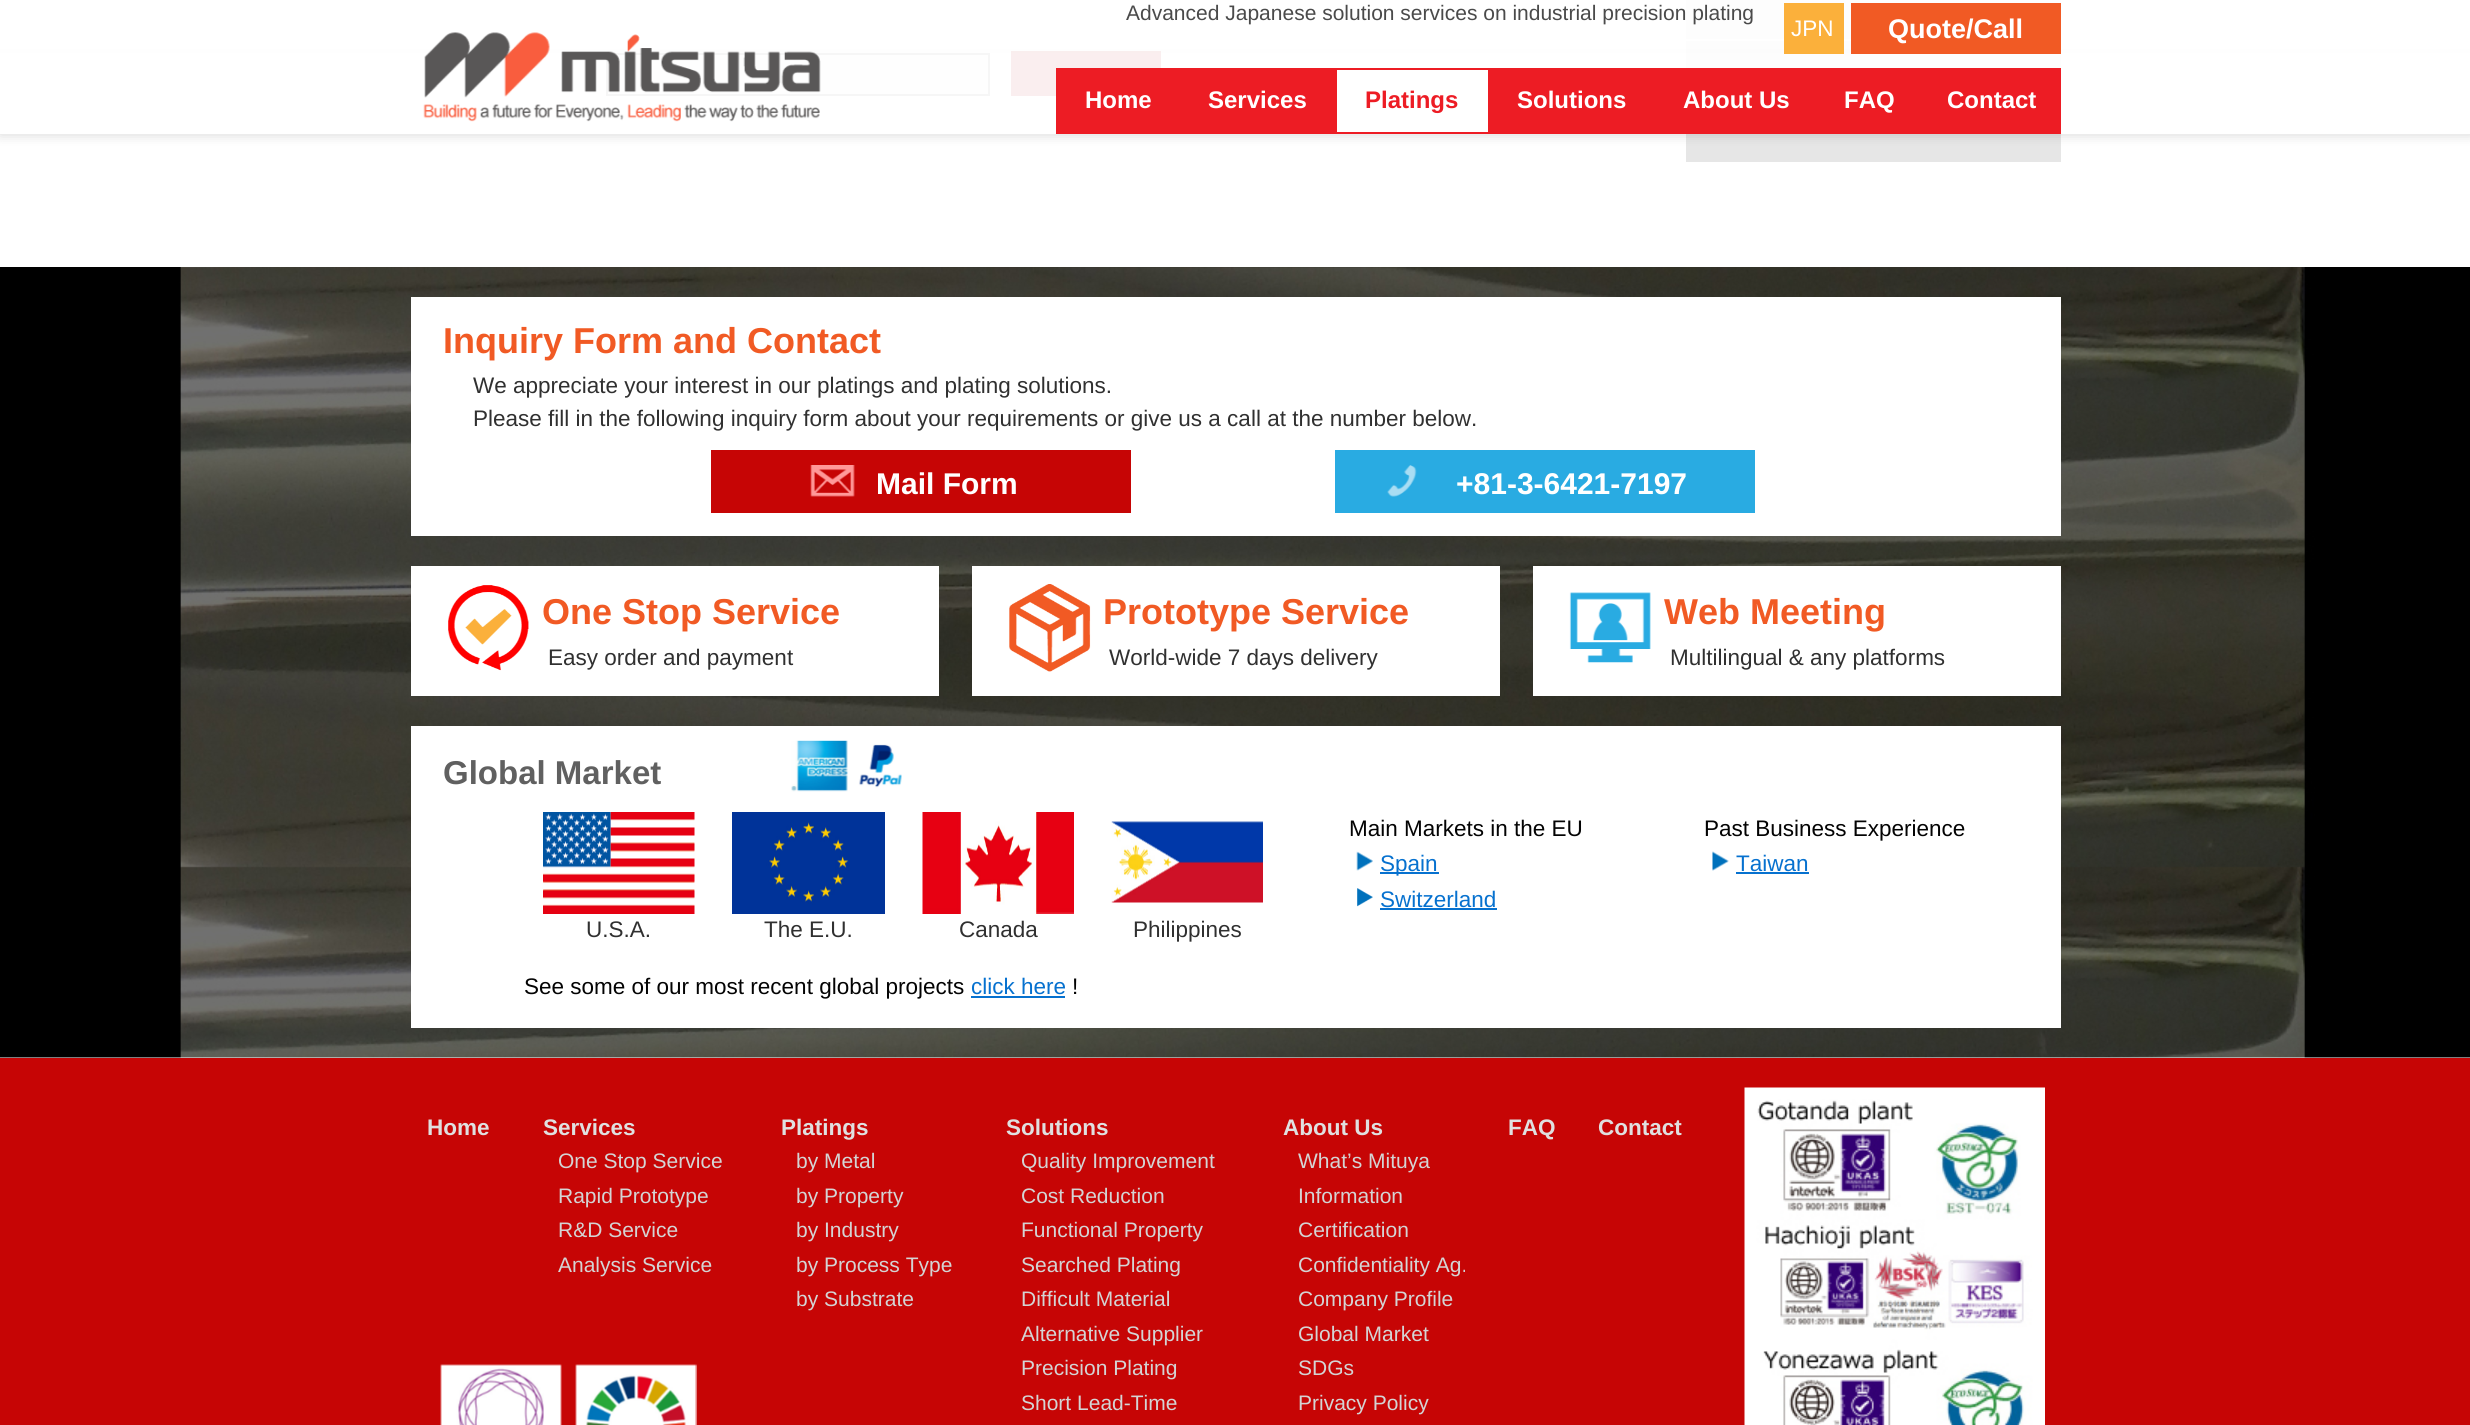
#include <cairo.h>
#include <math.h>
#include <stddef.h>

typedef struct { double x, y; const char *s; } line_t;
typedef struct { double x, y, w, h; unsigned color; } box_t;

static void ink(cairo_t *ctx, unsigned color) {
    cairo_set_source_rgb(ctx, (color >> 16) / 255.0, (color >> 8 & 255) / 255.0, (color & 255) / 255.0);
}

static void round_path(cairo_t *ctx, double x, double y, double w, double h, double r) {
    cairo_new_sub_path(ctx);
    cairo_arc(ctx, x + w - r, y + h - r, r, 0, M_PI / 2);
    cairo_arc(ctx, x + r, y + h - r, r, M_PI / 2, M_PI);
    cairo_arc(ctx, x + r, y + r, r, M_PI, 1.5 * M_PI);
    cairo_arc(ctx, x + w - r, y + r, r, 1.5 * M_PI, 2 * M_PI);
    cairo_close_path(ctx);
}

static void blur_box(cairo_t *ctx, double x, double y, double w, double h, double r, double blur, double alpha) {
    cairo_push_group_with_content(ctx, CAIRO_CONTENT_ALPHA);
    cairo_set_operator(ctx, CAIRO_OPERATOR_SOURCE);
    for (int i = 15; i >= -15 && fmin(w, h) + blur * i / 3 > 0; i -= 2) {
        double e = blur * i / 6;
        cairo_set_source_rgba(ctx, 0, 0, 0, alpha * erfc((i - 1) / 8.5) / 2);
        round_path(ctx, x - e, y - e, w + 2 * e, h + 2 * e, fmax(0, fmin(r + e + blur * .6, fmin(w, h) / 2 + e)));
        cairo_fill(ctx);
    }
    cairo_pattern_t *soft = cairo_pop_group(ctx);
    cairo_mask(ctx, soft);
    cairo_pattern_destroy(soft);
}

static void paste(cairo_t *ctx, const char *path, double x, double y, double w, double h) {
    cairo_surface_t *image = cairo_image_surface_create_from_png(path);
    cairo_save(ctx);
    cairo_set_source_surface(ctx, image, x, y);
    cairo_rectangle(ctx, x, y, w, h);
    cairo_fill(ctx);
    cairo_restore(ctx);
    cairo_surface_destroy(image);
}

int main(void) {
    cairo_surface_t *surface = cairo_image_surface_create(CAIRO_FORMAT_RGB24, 2470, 1425);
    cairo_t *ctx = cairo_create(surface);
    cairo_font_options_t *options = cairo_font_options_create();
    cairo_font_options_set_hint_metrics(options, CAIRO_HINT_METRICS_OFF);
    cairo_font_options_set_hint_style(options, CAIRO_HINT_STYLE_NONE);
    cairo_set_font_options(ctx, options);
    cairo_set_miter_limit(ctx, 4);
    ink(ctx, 0xFFFFFF);
    cairo_paint(ctx);
    ink(ctx, 0xF6F6F6);
    cairo_rectangle(ctx, 607, 54, 382, 41);
    cairo_fill_preserve(ctx);
    ink(ctx, 0x888888);
    cairo_stroke(ctx);
    {
        static const box_t items[] = {
            {1011, 51, 150, 45, 0xC1272D},
            {1686, 0, 375, 39, 0xE6E6E6},
            {1686, 41, 375, 27, 0xE6E6E6},
            {1686, 134, 375, 28, 0xE6E6E6},
        };
        for (size_t i = 0; i < sizeof items / sizeof *items; i++) {
            ink(ctx, items[i].color);
            cairo_rectangle(ctx, items[i].x, items[i].y, items[i].w, items[i].h);
            cairo_fill(ctx);
        }
    }
    cairo_save(ctx);
    cairo_set_fill_rule(ctx, CAIRO_FILL_RULE_EVEN_ODD);
    cairo_new_path(ctx);
    cairo_move_to(ctx, 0, 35);
    cairo_line_to(ctx, 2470, 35);
    cairo_line_to(ctx, 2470, 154);
    cairo_line_to(ctx, 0, 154);
    cairo_close_path(ctx);
    cairo_move_to(ctx, 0, 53);
    cairo_line_to(ctx, 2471, 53);
    cairo_line_to(ctx, 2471, 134);
    cairo_line_to(ctx, 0, 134);
    cairo_close_path(ctx);
    cairo_clip(ctx);
    ink(ctx, 0x000000);
    blur_box(ctx, 0, 54, 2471, 81, 0, 6, 0.15);
    cairo_restore(ctx);
    cairo_set_source_rgba(ctx, 1, 1, 1, 0.92);
    cairo_rectangle(ctx, 0, 0, 2470, 53);
    cairo_fill(ctx);
    cairo_select_font_face(ctx, "Liberation Sans", CAIRO_FONT_SLANT_NORMAL, CAIRO_FONT_WEIGHT_NORMAL);
    cairo_set_font_size(ctx, 21);
    ink(ctx, 0x4A4A4A);
    cairo_move_to(ctx, 1126, 20);
    cairo_show_text(ctx, "Advanced Japanese solution services on industrial precision plating");
    cairo_set_source_rgba(ctx, 1, 1, 1, 0.92);
    cairo_rectangle(ctx, 0, 53, 2470, 81);
    cairo_fill(ctx);
    ink(ctx, 0xFBB03B);
    cairo_rectangle(ctx, 1784, 3, 60, 51);
    cairo_fill(ctx);
    cairo_set_font_size(ctx, 22.5);
    ink(ctx, 0xFFFFFF);
    cairo_move_to(ctx, 1791, 36);
    cairo_show_text(ctx, "JPN");
    ink(ctx, 0xF15A24);
    cairo_rectangle(ctx, 1851, 3, 210, 51);
    cairo_fill(ctx);
    cairo_select_font_face(ctx, "Liberation Sans", CAIRO_FONT_SLANT_NORMAL, CAIRO_FONT_WEIGHT_BOLD);
    cairo_set_font_size(ctx, 27);
    ink(ctx, 0xFFFFFF);
    cairo_move_to(ctx, 1888, 38);
    cairo_show_text(ctx, "Quote/Call");
    paste(ctx, "media/1.png", 423, 32, 398, 90);
    ink(ctx, 0xED1C24);
    cairo_rectangle(ctx, 1056, 68, 279, 66);
    cairo_fill(ctx);
    cairo_set_font_size(ctx, 24);
    ink(ctx, 0xFFFFFF);
    cairo_move_to(ctx, 1085, 108);
    cairo_show_text(ctx, "Home");
    cairo_move_to(ctx, 1208, 108);
    cairo_show_text(ctx, "Services");
    cairo_rectangle(ctx, 1336, 69, 153, 64);
    ink(ctx, 0xED1C24);
    cairo_stroke(ctx);
    cairo_move_to(ctx, 1365, 108);
    cairo_show_text(ctx, "Platings");
    cairo_rectangle(ctx, 1490, 68, 571, 66);
    cairo_fill(ctx);
    ink(ctx, 0xFFFFFF);
    {
        static const line_t items[] = {
            {1517, 108, "Solutions"},
            {1683, 108, "About Us"},
            {1844, 108, "FAQ"},
            {1947, 108, "Contact"},
        };
        for (size_t i = 0; i < sizeof items / sizeof *items; i++) {
            cairo_move_to(ctx, items[i].x, items[i].y);
            cairo_show_text(ctx, items[i].s);
        }
    }
    paste(ctx, "media/2.png", 0, 267, 2470, 791);
    cairo_rectangle(ctx, 411, 297, 1650, 239);
    cairo_fill(ctx);
    cairo_set_font_size(ctx, 36);
    ink(ctx, 0xF15A24);
    cairo_move_to(ctx, 443, 353);
    cairo_show_text(ctx, "Inquiry Form and Contact");
    cairo_select_font_face(ctx, "Liberation Sans", CAIRO_FONT_SLANT_NORMAL, CAIRO_FONT_WEIGHT_NORMAL);
    cairo_set_font_size(ctx, 22.5);
    ink(ctx, 0x303030);
    cairo_move_to(ctx, 473, 393);
    cairo_show_text(ctx, "We appreciate your interest in our platings and plating solutions.");
    cairo_move_to(ctx, 473, 426);
    cairo_show_text(ctx, "Please fill in the following inquiry form about your requirements or give us a call at the number below.");
    ink(ctx, 0xC60505);
    cairo_rectangle(ctx, 711, 450, 420, 63);
    cairo_fill(ctx);
    paste(ctx, "media/3.png", 810, 465, 45, 32);
    cairo_select_font_face(ctx, "Liberation Sans", CAIRO_FONT_SLANT_NORMAL, CAIRO_FONT_WEIGHT_BOLD);
    cairo_set_font_size(ctx, 30);
    ink(ctx, 0xFFFFFF);
    cairo_move_to(ctx, 876, 494);
    cairo_show_text(ctx, "Mail Form");
    ink(ctx, 0x29ABE2);
    cairo_rectangle(ctx, 1335, 450, 420, 63);
    cairo_fill(ctx);
    paste(ctx, "media/4.png", 1387, 465, 30, 32);
    ink(ctx, 0xFFFFFF);
    cairo_move_to(ctx, 1456, 494);
    cairo_show_text(ctx, "+81-3-6421-7197");
    cairo_rectangle(ctx, 411, 566, 528, 130);
    cairo_fill(ctx);
    paste(ctx, "media/5.png", 448, 585, 81, 86);
    cairo_set_font_size(ctx, 36);
    ink(ctx, 0xF15A24);
    cairo_move_to(ctx, 542, 624);
    cairo_show_text(ctx, "One Stop Service");
    cairo_select_font_face(ctx, "Liberation Sans", CAIRO_FONT_SLANT_NORMAL, CAIRO_FONT_WEIGHT_NORMAL);
    cairo_set_font_size(ctx, 22.5);
    ink(ctx, 0x303030);
    cairo_move_to(ctx, 548, 665);
    cairo_show_text(ctx, "Easy order and payment");
    ink(ctx, 0xFFFFFF);
    cairo_rectangle(ctx, 972, 566, 528, 130);
    cairo_fill(ctx);
    paste(ctx, "media/6.png", 1009, 584, 82, 88);
    cairo_select_font_face(ctx, "Liberation Sans", CAIRO_FONT_SLANT_NORMAL, CAIRO_FONT_WEIGHT_BOLD);
    cairo_set_font_size(ctx, 36);
    ink(ctx, 0xF15A24);
    cairo_move_to(ctx, 1103, 624);
    cairo_show_text(ctx, "Prototype Service");
    cairo_select_font_face(ctx, "Liberation Sans", CAIRO_FONT_SLANT_NORMAL, CAIRO_FONT_WEIGHT_NORMAL);
    cairo_set_font_size(ctx, 22.5);
    ink(ctx, 0x303030);
    cairo_move_to(ctx, 1109, 665);
    cairo_show_text(ctx, "World-wide 7 days delivery");
    ink(ctx, 0xFFFFFF);
    cairo_rectangle(ctx, 1533, 566, 528, 130);
    cairo_fill(ctx);
    paste(ctx, "media/7.png", 1569, 592, 82, 71);
    cairo_select_font_face(ctx, "Liberation Sans", CAIRO_FONT_SLANT_NORMAL, CAIRO_FONT_WEIGHT_BOLD);
    cairo_set_font_size(ctx, 36);
    ink(ctx, 0xF15A24);
    cairo_move_to(ctx, 1664, 624);
    cairo_show_text(ctx, "Web Meeting");
    cairo_select_font_face(ctx, "Liberation Sans", CAIRO_FONT_SLANT_NORMAL, CAIRO_FONT_WEIGHT_NORMAL);
    cairo_set_font_size(ctx, 22.5);
    ink(ctx, 0x303030);
    cairo_move_to(ctx, 1670, 665);
    cairo_show_text(ctx, "Multilingual & any platforms");
    ink(ctx, 0xFFFFFF);
    cairo_rectangle(ctx, 411, 726, 1650, 302);
    cairo_fill(ctx);
    cairo_select_font_face(ctx, "Liberation Sans", CAIRO_FONT_SLANT_NORMAL, CAIRO_FONT_WEIGHT_BOLD);
    cairo_set_font_size(ctx, 33);
    ink(ctx, 0x606060);
    cairo_move_to(ctx, 443, 784);
    cairo_show_text(ctx, "Global Market");
    paste(ctx, "media/8.png", 791, 740, 111, 52);
    cairo_select_font_face(ctx, "Liberation Sans", CAIRO_FONT_SLANT_NORMAL, CAIRO_FONT_WEIGHT_NORMAL);
    cairo_set_font_size(ctx, 22.5);
    ink(ctx, 0x030303);
    cairo_move_to(ctx, 1349, 836);
    cairo_show_text(ctx, "Main Markets in the EU");
    paste(ctx, "media/9.png", 1356, 851, 17, 20);
    ink(ctx, 0x0671CF);
    cairo_rectangle(ctx, 1380, 872, 59, 2);
    cairo_fill(ctx);
    cairo_move_to(ctx, 1380, 871);
    cairo_show_text(ctx, "Spain");
    paste(ctx, "media/10.png", 1357, 888, 16, 19);
    cairo_move_to(ctx, 1380, 907);
    cairo_show_text(ctx, "Switzerland");
    cairo_rectangle(ctx, 1380, 908, 117, 2);
    cairo_fill(ctx);
    ink(ctx, 0x030303);
    cairo_move_to(ctx, 1704, 836);
    cairo_show_text(ctx, "Past Business Experience");
    paste(ctx, "media/11.png", 1712, 851, 17, 20);
    ink(ctx, 0x0671CF);
    cairo_move_to(ctx, 1736, 871);
    cairo_show_text(ctx, "Taiwan");
    cairo_rectangle(ctx, 1736, 872, 73, 2);
    cairo_fill(ctx);
    paste(ctx, "media/12.png", 543, 812, 152, 102);
    ink(ctx, 0x303030);
    cairo_move_to(ctx, 586, 937);
    cairo_show_text(ctx, "U.S.A.");
    paste(ctx, "media/13.png", 732, 812, 153, 102);
    cairo_move_to(ctx, 764, 937);
    cairo_show_text(ctx, "The E.U.");
    paste(ctx, "media/14.png", 922, 812, 152, 102);
    cairo_move_to(ctx, 959, 937);
    cairo_show_text(ctx, "Canada");
    paste(ctx, "media/15.png", 1111, 821, 152, 82);
    cairo_move_to(ctx, 1133, 937);
    cairo_show_text(ctx, "Philippines");
    ink(ctx, 0x030303);
    cairo_move_to(ctx, 524, 994);
    cairo_show_text(ctx, "See some of our most recent global projects");
    ink(ctx, 0x0671CF);
    cairo_move_to(ctx, 971, 994);
    cairo_show_text(ctx, "click here");
    cairo_rectangle(ctx, 971, 996, 94, 2);
    cairo_fill(ctx);
    ink(ctx, 0x030303);
    cairo_move_to(ctx, 1072, 994);
    cairo_show_text(ctx, "!");
    ink(ctx, 0xC60505);
    cairo_rectangle(ctx, 0, 1058, 2470, 367);
    cairo_fill(ctx);
    cairo_select_font_face(ctx, "Liberation Sans", CAIRO_FONT_SLANT_NORMAL, CAIRO_FONT_WEIGHT_BOLD);
    ink(ctx, 0xE0E0E0);
    cairo_move_to(ctx, 427, 1135);
    cairo_show_text(ctx, "Home");
    cairo_move_to(ctx, 543, 1135);
    cairo_show_text(ctx, "Services");
    cairo_select_font_face(ctx, "Liberation Sans", CAIRO_FONT_SLANT_NORMAL, CAIRO_FONT_WEIGHT_NORMAL);
    cairo_set_font_size(ctx, 21);
    ink(ctx, 0xD4D4D4);
    {
        static const line_t items[] = {
            {558, 1168, "One Stop Service"},
            {558, 1203, "Rapid Prototype"},
            {558, 1237, "R&D Service"},
            {558, 1272, "Analysis Service"},
        };
        for (size_t i = 0; i < sizeof items / sizeof *items; i++) {
            cairo_move_to(ctx, items[i].x, items[i].y);
            cairo_show_text(ctx, items[i].s);
        }
    }
    cairo_select_font_face(ctx, "Liberation Sans", CAIRO_FONT_SLANT_NORMAL, CAIRO_FONT_WEIGHT_BOLD);
    cairo_set_font_size(ctx, 22.5);
    ink(ctx, 0xE0E0E0);
    cairo_move_to(ctx, 781, 1135);
    cairo_show_text(ctx, "Platings");
    cairo_select_font_face(ctx, "Liberation Sans", CAIRO_FONT_SLANT_NORMAL, CAIRO_FONT_WEIGHT_NORMAL);
    cairo_set_font_size(ctx, 21);
    ink(ctx, 0xD4D4D4);
    {
        static const line_t items[] = {
            {796, 1168, "by Metal"},
            {796, 1203, "by Property"},
            {796, 1237, "by Industry"},
            {796, 1272, "by Process Type"},
            {796, 1306, "by Substrate"},
        };
        for (size_t i = 0; i < sizeof items / sizeof *items; i++) {
            cairo_move_to(ctx, items[i].x, items[i].y);
            cairo_show_text(ctx, items[i].s);
        }
    }
    cairo_select_font_face(ctx, "Liberation Sans", CAIRO_FONT_SLANT_NORMAL, CAIRO_FONT_WEIGHT_BOLD);
    cairo_set_font_size(ctx, 22.5);
    ink(ctx, 0xE0E0E0);
    cairo_move_to(ctx, 1006, 1135);
    cairo_show_text(ctx, "Solutions");
    cairo_select_font_face(ctx, "Liberation Sans", CAIRO_FONT_SLANT_NORMAL, CAIRO_FONT_WEIGHT_NORMAL);
    cairo_set_font_size(ctx, 21);
    ink(ctx, 0xD4D4D4);
    {
        static const line_t items[] = {
            {1021, 1168, "Quality Improvement"},
            {1021, 1203, "Cost Reduction"},
            {1021, 1237, "Functional Property"},
            {1021, 1272, "Searched Plating"},
            {1021, 1306, "Difficult Material"},
            {1021, 1341, "Alternative Supplier"},
            {1021, 1375, "Precision Plating"},
            {1021, 1410, "Short Lead-Time"},
        };
        for (size_t i = 0; i < sizeof items / sizeof *items; i++) {
            cairo_move_to(ctx, items[i].x, items[i].y);
            cairo_show_text(ctx, items[i].s);
        }
    }
    cairo_select_font_face(ctx, "Liberation Sans", CAIRO_FONT_SLANT_NORMAL, CAIRO_FONT_WEIGHT_BOLD);
    cairo_set_font_size(ctx, 22.5);
    ink(ctx, 0xE0E0E0);
    cairo_move_to(ctx, 1283, 1135);
    cairo_show_text(ctx, "About Us");
    cairo_select_font_face(ctx, "Liberation Sans", CAIRO_FONT_SLANT_NORMAL, CAIRO_FONT_WEIGHT_NORMAL);
    cairo_set_font_size(ctx, 21);
    ink(ctx, 0xD4D4D4);
    {
        static const line_t items[] = {
            {1298, 1168, "What’s Mituya"},
            {1298, 1203, "Information"},
            {1298, 1237, "Certification"},
            {1298, 1272, "Confidentiality Ag."},
            {1298, 1306, "Company Profile"},
            {1298, 1341, "Global Market"},
            {1298, 1375, "SDGs"},
            {1298, 1410, "Privacy Policy"},
        };
        for (size_t i = 0; i < sizeof items / sizeof *items; i++) {
            cairo_move_to(ctx, items[i].x, items[i].y);
            cairo_show_text(ctx, items[i].s);
        }
    }
    cairo_select_font_face(ctx, "Liberation Sans", CAIRO_FONT_SLANT_NORMAL, CAIRO_FONT_WEIGHT_BOLD);
    cairo_set_font_size(ctx, 22.5);
    ink(ctx, 0xE0E0E0);
    cairo_move_to(ctx, 1508, 1135);
    cairo_show_text(ctx, "FAQ");
    cairo_move_to(ctx, 1598, 1135);
    cairo_show_text(ctx, "Contact");
    paste(ctx, "media/16.png", 1744, 1087, 301, 338);
    paste(ctx, "media/17.png", 440, 1364, 122, 61);
    paste(ctx, "media/18.png", 575, 1364, 122, 61);
    cairo_surface_write_to_png(surface, "image.png");
    cairo_font_options_destroy(options);
    cairo_destroy(ctx);
    cairo_surface_destroy(surface);
    return 0;
}
